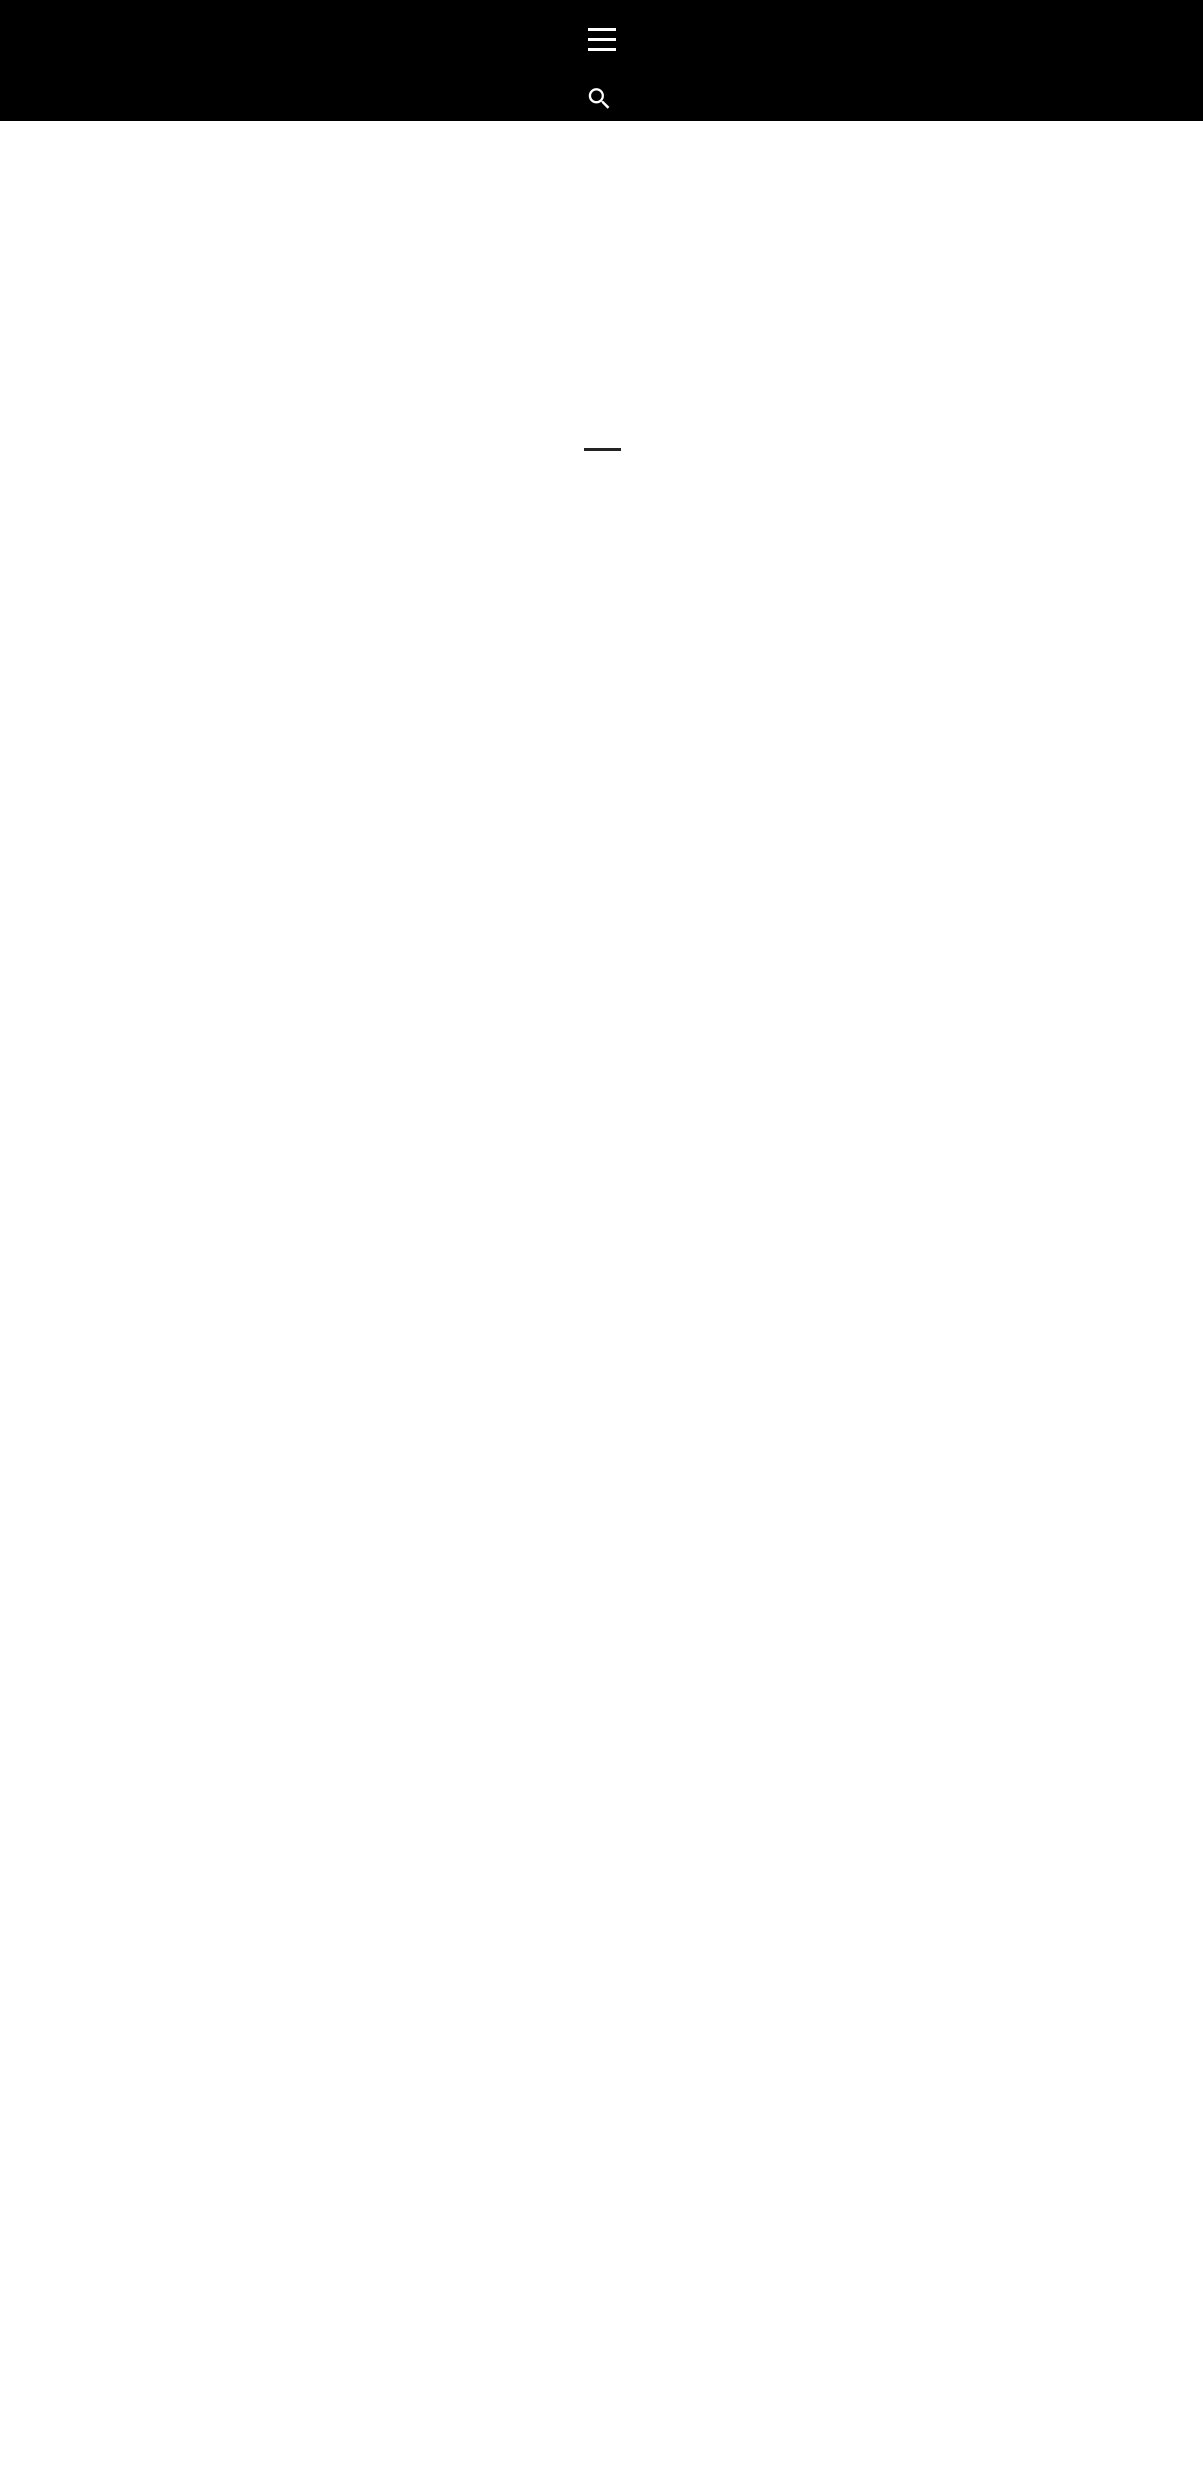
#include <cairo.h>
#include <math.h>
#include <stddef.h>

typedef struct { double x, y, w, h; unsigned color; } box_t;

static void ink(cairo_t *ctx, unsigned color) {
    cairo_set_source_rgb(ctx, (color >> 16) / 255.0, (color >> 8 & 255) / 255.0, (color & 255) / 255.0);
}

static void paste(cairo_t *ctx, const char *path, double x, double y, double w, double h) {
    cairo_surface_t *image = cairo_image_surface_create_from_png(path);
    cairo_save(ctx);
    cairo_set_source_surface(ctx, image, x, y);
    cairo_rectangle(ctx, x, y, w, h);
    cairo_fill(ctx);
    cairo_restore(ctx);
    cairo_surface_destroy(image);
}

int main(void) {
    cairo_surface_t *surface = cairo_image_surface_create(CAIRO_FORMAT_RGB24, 1203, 2471);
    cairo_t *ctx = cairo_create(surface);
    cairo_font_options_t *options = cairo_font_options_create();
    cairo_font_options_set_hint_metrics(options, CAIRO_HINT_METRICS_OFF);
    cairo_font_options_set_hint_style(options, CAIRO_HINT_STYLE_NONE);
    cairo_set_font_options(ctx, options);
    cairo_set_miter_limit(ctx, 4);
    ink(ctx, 0xFFFFFF);
    cairo_paint(ctx);
    {
        static const box_t items[] = {
            {0, 0, 1203, 121, 0x000000},
            {588, 38, 28, 3, 0xFFFFFF},
            {588, 28, 28, 3, 0xFFFFFF},
            {588, 48, 28, 3, 0xFFFFFF},
        };
        for (size_t i = 0; i < sizeof items / sizeof *items; i++) {
            ink(ctx, items[i].color);
            cairo_rectangle(ctx, items[i].x, items[i].y, items[i].w, items[i].h);
            cairo_fill(ctx);
        }
    }
    paste(ctx, "media/1.png", 588, 88, 22, 21);
    ink(ctx, 0x232323);
    cairo_rectangle(ctx, 584, 448, 37, 3);
    cairo_fill(ctx);
    cairo_surface_write_to_png(surface, "image.png");
    cairo_font_options_destroy(options);
    cairo_destroy(ctx);
    cairo_surface_destroy(surface);
    return 0;
}
